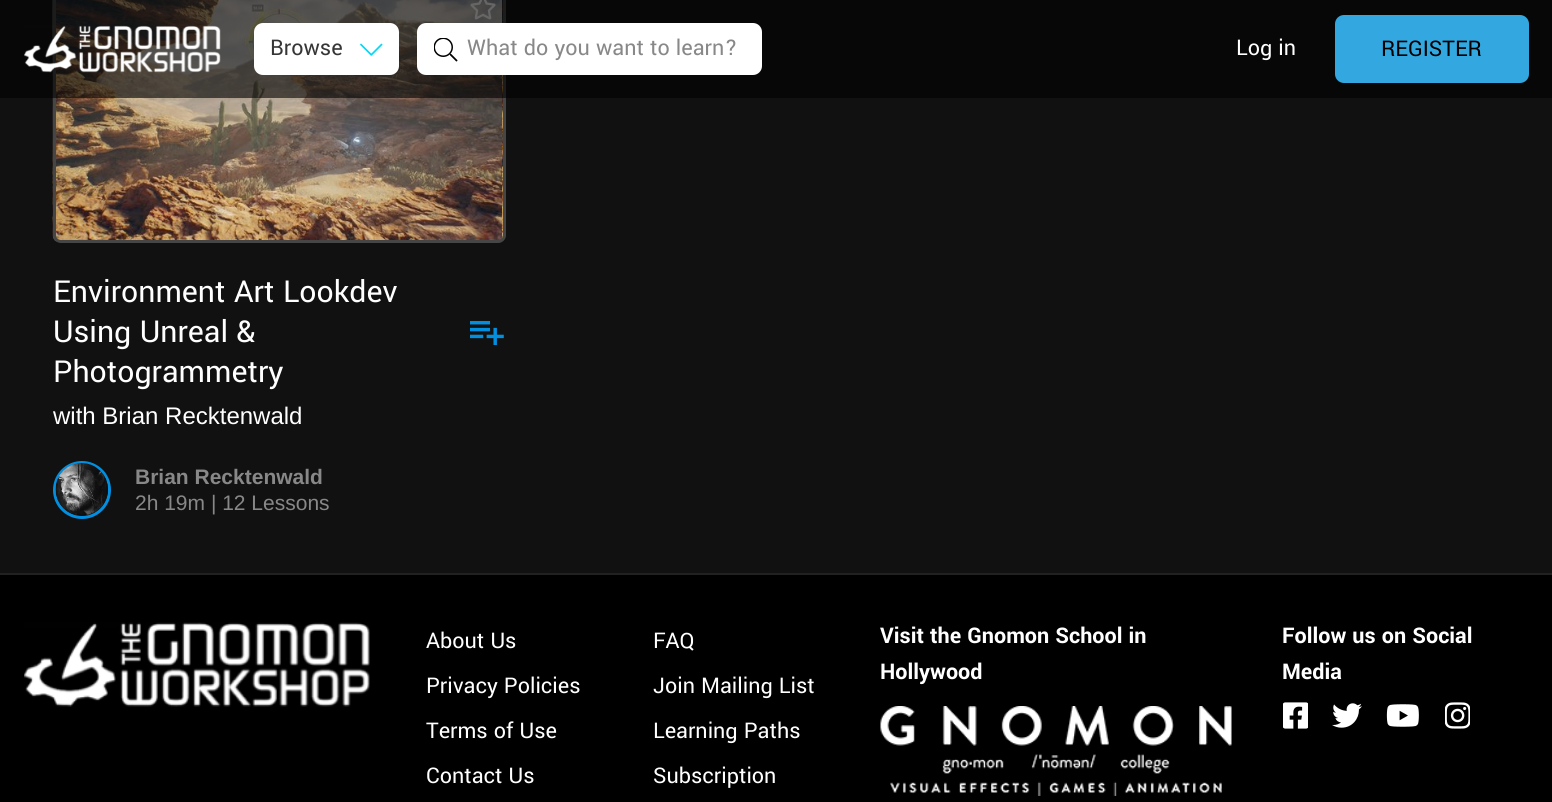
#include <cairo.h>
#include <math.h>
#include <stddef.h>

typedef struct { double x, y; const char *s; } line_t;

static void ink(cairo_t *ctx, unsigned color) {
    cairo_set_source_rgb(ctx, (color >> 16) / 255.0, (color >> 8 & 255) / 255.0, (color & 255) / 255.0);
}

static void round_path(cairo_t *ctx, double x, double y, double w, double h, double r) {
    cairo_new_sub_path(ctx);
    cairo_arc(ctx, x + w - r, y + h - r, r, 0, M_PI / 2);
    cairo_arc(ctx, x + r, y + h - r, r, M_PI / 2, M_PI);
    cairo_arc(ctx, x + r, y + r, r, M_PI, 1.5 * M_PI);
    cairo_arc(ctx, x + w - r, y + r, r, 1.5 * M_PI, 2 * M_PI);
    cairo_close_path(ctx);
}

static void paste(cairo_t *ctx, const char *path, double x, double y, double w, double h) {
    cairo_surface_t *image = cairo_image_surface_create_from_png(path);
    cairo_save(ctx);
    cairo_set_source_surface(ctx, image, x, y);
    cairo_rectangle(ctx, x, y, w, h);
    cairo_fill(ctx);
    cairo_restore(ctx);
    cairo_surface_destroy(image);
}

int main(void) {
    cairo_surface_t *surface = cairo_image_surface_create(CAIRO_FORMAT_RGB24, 1552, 802);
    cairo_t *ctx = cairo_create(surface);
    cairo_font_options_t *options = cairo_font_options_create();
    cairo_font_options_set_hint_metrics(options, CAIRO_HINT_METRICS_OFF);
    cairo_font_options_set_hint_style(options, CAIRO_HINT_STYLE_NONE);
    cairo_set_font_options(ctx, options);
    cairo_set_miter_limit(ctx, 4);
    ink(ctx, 0x000000);
    cairo_paint(ctx);
    ink(ctx, 0x111111);
    cairo_rectangle(ctx, 0, 0, 1552, 573);
    cairo_fill(ctx);
    paste(ctx, "media/4.png", 52, 0, 454, 243);
    round_path(ctx, 54.5, -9.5, 450, 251, 6.5);
    ink(ctx, 0x464646);
    cairo_set_line_width(ctx, 3);
    cairo_stroke(ctx);
    paste(ctx, "media/5.png", 470, 0, 26, 20);
    cairo_set_source_rgba(ctx, 0, 0, 0, 0.6);
    cairo_rectangle(ctx, 0, 0, 1552, 98);
    cairo_fill(ctx);
    paste(ctx, "media/1.png", 24, 25, 197, 48);
    ink(ctx, 0xFFFFFF);
    round_path(ctx, 254, 23, 145, 52, 9);
    cairo_fill(ctx);
    cairo_select_font_face(ctx, "Yantramanav", CAIRO_FONT_SLANT_NORMAL, CAIRO_FONT_WEIGHT_NORMAL);
    cairo_set_font_size(ctx, 24);
    ink(ctx, 0x363636);
    cairo_move_to(ctx, 270, 55);
    cairo_show_text(ctx, "Browse");
    paste(ctx, "media/2.png", 360, 43, 23, 13);
    ink(ctx, 0xFFFFFF);
    round_path(ctx, 417, 23, 345, 52, 9);
    cairo_fill(ctx);
    paste(ctx, "media/3.png", 434, 38, 24, 24);
    ink(ctx, 0x888888);
    cairo_move_to(ctx, 467, 55);
    cairo_show_text(ctx, "What do you want to learn?");
    ink(ctx, 0xFFFFFF);
    cairo_move_to(ctx, 1236, 55);
    cairo_show_text(ctx, "Log in");
    ink(ctx, 0x33A8E0);
    round_path(ctx, 1336, 16, 192, 66, 8);
    cairo_fill_preserve(ctx);
    cairo_set_line_width(ctx, 2);
    cairo_stroke(ctx);
    ink(ctx, 0x000000);
    cairo_move_to(ctx, 1381, 56);
    cairo_show_text(ctx, "REGISTER");
    ink(ctx, 0x212121);
    cairo_rectangle(ctx, 0, 573, 1552, 2);
    cairo_fill(ctx);
    cairo_set_font_size(ctx, 33.6);
    ink(ctx, 0xFFFFFF);
    cairo_move_to(ctx, 53, 302);
    cairo_show_text(ctx, "Environment Art Lookdev");
    cairo_move_to(ctx, 53, 342);
    cairo_show_text(ctx, "Using Unreal &");
    paste(ctx, "media/6.png", 470, 321, 34, 24);
    cairo_move_to(ctx, 53, 382);
    cairo_show_text(ctx, "Photogrammetry");
    cairo_select_font_face(ctx, "Liberation Sans", CAIRO_FONT_SLANT_NORMAL, CAIRO_FONT_WEIGHT_NORMAL);
    cairo_set_font_size(ctx, 24);
    cairo_move_to(ctx, 53, 424);
    cairo_show_text(ctx, "with Brian Recktenwald");
    cairo_new_path(ctx);
    cairo_arc(ctx, 82, 490, 27.5, 0, 2 * M_PI);
    ink(ctx, 0x028FDF);
    cairo_set_line_width(ctx, 3);
    cairo_stroke(ctx);
    paste(ctx, "media/7.png", 55, 463, 53, 53);
    cairo_select_font_face(ctx, "Liberation Sans", CAIRO_FONT_SLANT_NORMAL, CAIRO_FONT_WEIGHT_BOLD);
    cairo_set_font_size(ctx, 21);
    ink(ctx, 0x888888);
    cairo_move_to(ctx, 135, 484);
    cairo_show_text(ctx, "Brian Recktenwald");
    cairo_select_font_face(ctx, "Liberation Sans", CAIRO_FONT_SLANT_NORMAL, CAIRO_FONT_WEIGHT_NORMAL);
    cairo_move_to(ctx, 135, 510);
    cairo_show_text(ctx, "2h 19m | 12 Lessons");
    paste(ctx, "media/8.png", 24, 622, 346, 85);
    cairo_select_font_face(ctx, "Yantramanav", CAIRO_FONT_SLANT_NORMAL, CAIRO_FONT_WEIGHT_NORMAL);
    cairo_set_font_size(ctx, 24);
    ink(ctx, 0xFFFFFF);
    {
        static const line_t items[] = {
            {426, 648, "About Us"},
            {426, 693, "Privacy Policies"},
            {426, 738, "Terms of Use"},
            {426, 783, "Contact Us"},
            {653, 648, "FAQ"},
            {653, 693, "Join Mailing List"},
            {653, 738, "Learning Paths"},
            {653, 783, "Subscription"},
        };
        for (size_t i = 0; i < sizeof items / sizeof *items; i++) {
            cairo_move_to(ctx, items[i].x, items[i].y);
            cairo_show_text(ctx, items[i].s);
        }
    }
    cairo_select_font_face(ctx, "Yantramanav", CAIRO_FONT_SLANT_NORMAL, CAIRO_FONT_WEIGHT_BOLD);
    cairo_move_to(ctx, 880, 643);
    cairo_show_text(ctx, "Visit the Gnomon School in");
    cairo_move_to(ctx, 880, 679);
    cairo_show_text(ctx, "Hollywood");
    paste(ctx, "media/9.png", 880, 706, 352, 90);
    cairo_move_to(ctx, 1282, 643);
    cairo_show_text(ctx, "Follow us on Social");
    cairo_move_to(ctx, 1282, 679);
    cairo_show_text(ctx, "Media");
    paste(ctx, "media/10.png", 1283, 702, 25, 27);
    paste(ctx, "media/11.png", 1332, 703, 30, 25);
    paste(ctx, "media/12.png", 1386, 704, 33, 23);
    paste(ctx, "media/13.png", 1445, 702, 25, 27);
    cairo_surface_write_to_png(surface, "image.png");
    cairo_font_options_destroy(options);
    cairo_destroy(ctx);
    cairo_surface_destroy(surface);
    return 0;
}
